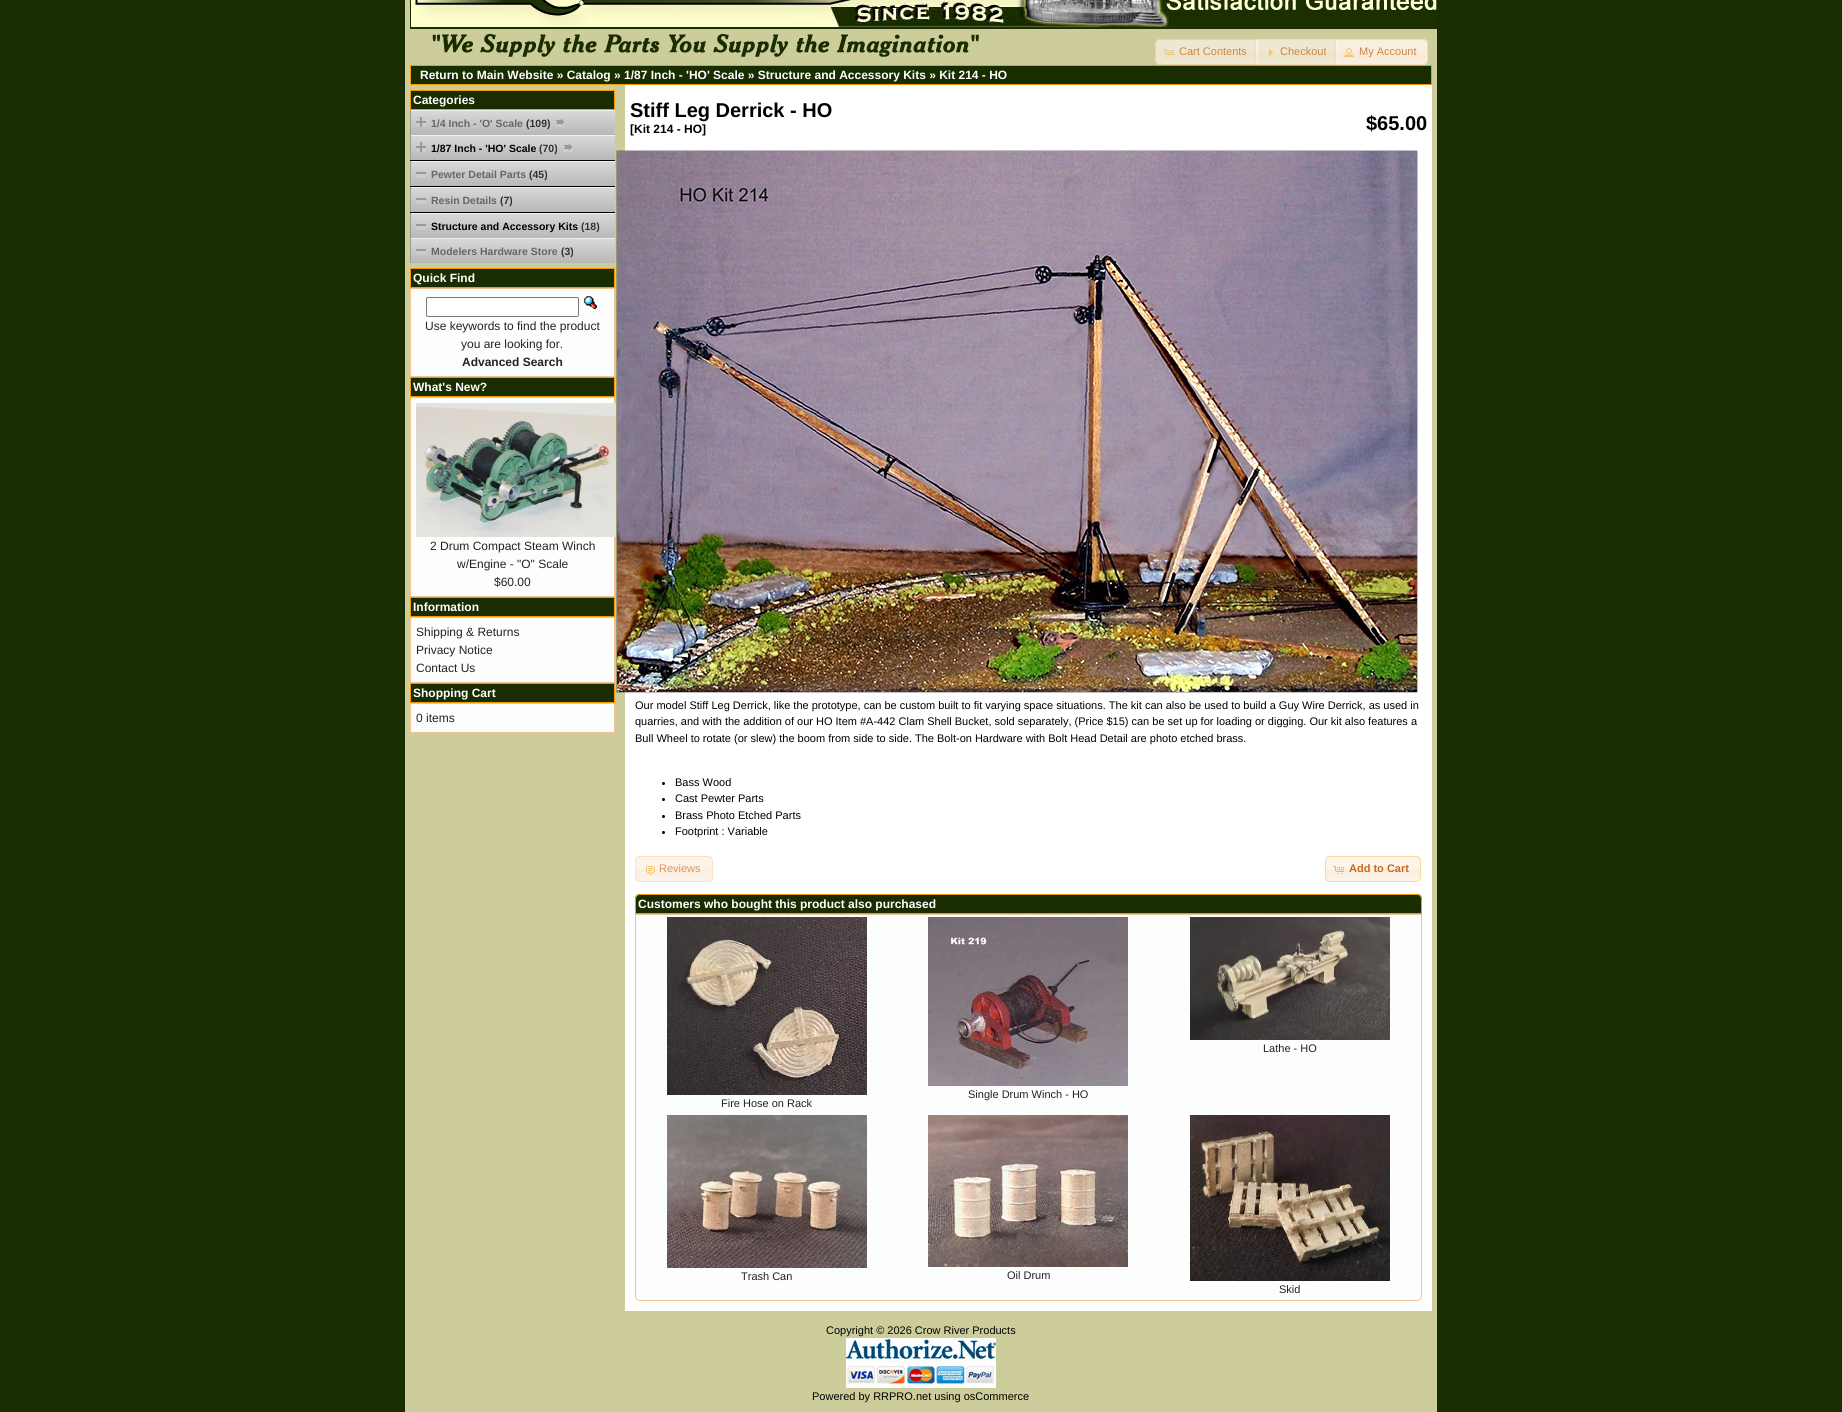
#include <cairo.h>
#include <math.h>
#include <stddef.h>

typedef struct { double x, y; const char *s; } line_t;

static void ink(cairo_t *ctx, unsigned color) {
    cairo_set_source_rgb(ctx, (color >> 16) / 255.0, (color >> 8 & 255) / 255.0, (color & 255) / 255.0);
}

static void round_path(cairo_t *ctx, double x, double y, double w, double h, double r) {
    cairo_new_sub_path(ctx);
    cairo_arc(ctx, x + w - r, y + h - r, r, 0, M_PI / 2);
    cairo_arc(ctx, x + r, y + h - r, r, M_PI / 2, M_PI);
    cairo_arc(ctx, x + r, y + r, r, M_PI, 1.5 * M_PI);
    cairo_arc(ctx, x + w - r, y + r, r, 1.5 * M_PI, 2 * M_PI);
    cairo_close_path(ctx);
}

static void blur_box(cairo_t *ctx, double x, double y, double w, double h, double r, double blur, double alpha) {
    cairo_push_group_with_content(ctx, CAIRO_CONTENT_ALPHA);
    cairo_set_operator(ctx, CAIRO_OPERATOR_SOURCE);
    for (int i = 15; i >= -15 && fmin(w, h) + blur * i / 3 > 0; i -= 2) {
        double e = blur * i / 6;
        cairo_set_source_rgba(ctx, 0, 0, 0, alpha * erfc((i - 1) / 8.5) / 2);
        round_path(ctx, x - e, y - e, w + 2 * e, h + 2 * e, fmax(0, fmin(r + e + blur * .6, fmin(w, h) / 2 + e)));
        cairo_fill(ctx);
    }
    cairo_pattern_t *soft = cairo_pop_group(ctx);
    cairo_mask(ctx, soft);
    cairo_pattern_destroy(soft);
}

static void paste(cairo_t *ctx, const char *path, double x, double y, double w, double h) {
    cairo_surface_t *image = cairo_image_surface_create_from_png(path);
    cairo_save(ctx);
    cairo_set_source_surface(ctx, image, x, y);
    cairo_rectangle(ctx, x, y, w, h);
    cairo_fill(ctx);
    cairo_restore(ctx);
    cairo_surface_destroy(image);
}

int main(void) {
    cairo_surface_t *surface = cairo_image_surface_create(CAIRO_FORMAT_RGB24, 1842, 1412);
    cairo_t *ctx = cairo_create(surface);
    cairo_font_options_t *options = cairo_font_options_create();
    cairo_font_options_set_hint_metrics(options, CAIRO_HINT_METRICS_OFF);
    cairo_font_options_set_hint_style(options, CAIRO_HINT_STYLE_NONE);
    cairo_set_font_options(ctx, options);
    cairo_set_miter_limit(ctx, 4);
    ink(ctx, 0x192D00);
    cairo_paint(ctx);
    ink(ctx, 0xCDCD9B);
    cairo_rectangle(ctx, 405, 0, 1032, 1412);
    cairo_fill(ctx);
    paste(ctx, "media/1.png", 410, 0, 1027, 29);
    paste(ctx, "media/2.png", 432, 34, 547, 23);
    paste(ctx, "media/3.png", 1155, 39, 103, 26);
    cairo_new_path(ctx);
    cairo_move_to(ctx, 1160, 39.5);
    cairo_line_to(ctx, 1258.5, 39.5);
    cairo_line_to(ctx, 1258.5, 64.5);
    cairo_line_to(ctx, 1160, 64.5);
    cairo_curve_to(ctx, 1157.5, 64.5, 1155.5, 62.5, 1155.5, 60);
    cairo_line_to(ctx, 1155.5, 44);
    cairo_curve_to(ctx, 1155.5, 41.5, 1157.5, 39.5, 1160, 39.5);
    cairo_close_path(ctx);
    ink(ctx, 0xECD39E);
    cairo_set_line_width(ctx, 1);
    cairo_stroke(ctx);
    paste(ctx, "media/4.png", 1163, 49, 11, 8);
    cairo_select_font_face(ctx, "Liberation Sans", CAIRO_FONT_SLANT_NORMAL, CAIRO_FONT_WEIGHT_NORMAL);
    cairo_set_font_size(ctx, 11);
    ink(ctx, 0xCA8743);
    cairo_move_to(ctx, 1179, 55);
    cairo_show_text(ctx, "Cart Contents");
    paste(ctx, "media/5.png", 1255, 39, 83, 26);
    cairo_rectangle(ctx, 1255.5, 39.5, 82, 25);
    cairo_set_source_rgba(ctx, 0.976, 0.839, 0.624, 0.7);
    cairo_stroke(ctx);
    paste(ctx, "media/6.png", 1269, 49, 4, 7);
    ink(ctx, 0xCA8743);
    cairo_move_to(ctx, 1280, 55);
    cairo_show_text(ctx, "Checkout");
    cairo_set_source_rgba(ctx, 0.988, 0.933, 0.875, 0.7);
    cairo_new_path(ctx);
    cairo_move_to(ctx, 1335, 39);
    cairo_line_to(ctx, 1423, 39);
    cairo_curve_to(ctx, 1426, 39, 1428, 41, 1428, 44);
    cairo_line_to(ctx, 1428, 60);
    cairo_curve_to(ctx, 1428, 63, 1426, 65, 1423, 65);
    cairo_line_to(ctx, 1335, 65);
    cairo_close_path(ctx);
    cairo_fill(ctx);
    paste(ctx, "media/7.png", 1335, 39, 93, 26);
    cairo_new_path(ctx);
    cairo_move_to(ctx, 1335.5, 39.5);
    cairo_line_to(ctx, 1423, 39.5);
    cairo_curve_to(ctx, 1425.5, 39.5, 1427.5, 41.5, 1427.5, 44);
    cairo_line_to(ctx, 1427.5, 60);
    cairo_curve_to(ctx, 1427.5, 62.5, 1425.5, 64.5, 1423, 64.5);
    cairo_line_to(ctx, 1335.5, 64.5);
    cairo_close_path(ctx);
    cairo_set_source_rgba(ctx, 0.976, 0.839, 0.624, 0.7);
    cairo_stroke(ctx);
    paste(ctx, "media/8.png", 1344, 48, 10, 9);
    ink(ctx, 0xCA8743);
    cairo_move_to(ctx, 1359, 55);
    cairo_show_text(ctx, "My Account");
    ink(ctx, 0x192D00);
    cairo_rectangle(ctx, 410.5, 65.5, 1021, 19);
    cairo_fill_preserve(ctx);
    ink(ctx, 0xF09B05);
    cairo_stroke(ctx);
    cairo_select_font_face(ctx, "Liberation Sans", CAIRO_FONT_SLANT_NORMAL, CAIRO_FONT_WEIGHT_BOLD);
    cairo_set_font_size(ctx, 12);
    ink(ctx, 0xFFFFFF);
    cairo_move_to(ctx, 420, 79);
    cairo_show_text(ctx, "Return to Main Website » Catalog » 1/87 Inch - 'HO' Scale » Structure and Accessory Kits » Kit 214 - HO");
    ink(ctx, 0x192D00);
    cairo_rectangle(ctx, 410.5, 90.5, 204, 19);
    cairo_fill_preserve(ctx);
    ink(ctx, 0xF09B05);
    cairo_stroke(ctx);
    ink(ctx, 0xFFFFFF);
    cairo_move_to(ctx, 413, 104);
    cairo_show_text(ctx, "Categories");
    paste(ctx, "media/9.png", 411, 111, 204, 24);
    ink(ctx, 0xF1F1F1);
    cairo_rectangle(ctx, 410, 110, 205, 1);
    cairo_fill(ctx);
    ink(ctx, 0x999999);
    cairo_rectangle(ctx, 410, 110, 1, 25);
    cairo_fill(ctx);
    paste(ctx, "media/10.png", 416, 117, 10, 10);
    cairo_set_font_size(ctx, 10.5);
    ink(ctx, 0x666666);
    cairo_move_to(ctx, 431, 127);
    cairo_show_text(ctx, "1/4 Inch - 'O' Scale");
    ink(ctx, 0x333333);
    cairo_move_to(ctx, 526, 127);
    cairo_show_text(ctx, "(109)");
    paste(ctx, "media/11.png", 555, 119, 10, 8);
    ink(ctx, 0xFFFFFF);
    cairo_rectangle(ctx, 625, 85, 807, 1226);
    cairo_fill(ctx);
    ink(ctx, 0x000000);
    blur_box(ctx, 617, 151, 800, 541, 0, 0.5, 1);
    paste(ctx, "media/9.png", 411, 136, 204, 24);
    ink(ctx, 0xF1F1F1);
    cairo_rectangle(ctx, 410, 135, 205, 1);
    cairo_fill(ctx);
    ink(ctx, 0x999999);
    cairo_rectangle(ctx, 410, 135, 1, 25);
    cairo_fill(ctx);
    paste(ctx, "media/10.png", 416, 142, 10, 10);
    ink(ctx, 0x000000);
    cairo_move_to(ctx, 431, 152);
    cairo_show_text(ctx, "1/87 Inch - 'HO' Scale");
    ink(ctx, 0x333333);
    cairo_move_to(ctx, 539, 152);
    cairo_show_text(ctx, "(70)");
    paste(ctx, "media/11.png", 563, 144, 10, 8);
    ink(ctx, 0x000000);
    cairo_rectangle(ctx, 410, 160, 205, 1);
    cairo_fill(ctx);
    paste(ctx, "media/9.png", 411, 162, 204, 24);
    ink(ctx, 0xF1F1F1);
    cairo_rectangle(ctx, 410, 161, 205, 1);
    cairo_fill(ctx);
    ink(ctx, 0x999999);
    cairo_rectangle(ctx, 410, 161, 1, 25);
    cairo_fill(ctx);
    paste(ctx, "media/12.png", 416, 172, 10, 6);
    ink(ctx, 0x666666);
    cairo_move_to(ctx, 431, 178);
    cairo_show_text(ctx, "Pewter Detail Parts");
    ink(ctx, 0x333333);
    cairo_move_to(ctx, 529, 178);
    cairo_show_text(ctx, "(45)");
    ink(ctx, 0x000000);
    cairo_rectangle(ctx, 410, 186, 205, 1);
    cairo_fill(ctx);
    paste(ctx, "media/9.png", 411, 188, 204, 24);
    ink(ctx, 0xF1F1F1);
    cairo_rectangle(ctx, 410, 187, 205, 1);
    cairo_fill(ctx);
    ink(ctx, 0x999999);
    cairo_rectangle(ctx, 410, 187, 1, 25);
    cairo_fill(ctx);
    paste(ctx, "media/12.png", 416, 198, 10, 6);
    ink(ctx, 0x666666);
    cairo_move_to(ctx, 431, 204);
    cairo_show_text(ctx, "Resin Details");
    ink(ctx, 0x333333);
    cairo_move_to(ctx, 500, 204);
    cairo_show_text(ctx, "(7)");
    ink(ctx, 0x000000);
    cairo_rectangle(ctx, 410, 212, 205, 1);
    cairo_fill(ctx);
    paste(ctx, "media/9.png", 411, 214, 204, 24);
    ink(ctx, 0xF1F1F1);
    cairo_rectangle(ctx, 410, 213, 205, 1);
    cairo_fill(ctx);
    ink(ctx, 0x999999);
    cairo_rectangle(ctx, 410, 213, 1, 25);
    cairo_fill(ctx);
    paste(ctx, "media/12.png", 416, 224, 10, 6);
    ink(ctx, 0x000000);
    cairo_move_to(ctx, 431, 230);
    cairo_show_text(ctx, "Structure and Accessory Kits");
    ink(ctx, 0x333333);
    cairo_move_to(ctx, 581, 230);
    cairo_show_text(ctx, "(18)");
    paste(ctx, "media/9.png", 411, 239, 204, 24);
    ink(ctx, 0xF1F1F1);
    cairo_rectangle(ctx, 410, 238, 205, 1);
    cairo_fill(ctx);
    ink(ctx, 0x999999);
    cairo_rectangle(ctx, 410, 238, 1, 25);
    cairo_fill(ctx);
    paste(ctx, "media/12.png", 416, 249, 10, 6);
    ink(ctx, 0x666666);
    cairo_move_to(ctx, 431, 255);
    cairo_show_text(ctx, "Modelers Hardware Store");
    ink(ctx, 0x333333);
    cairo_move_to(ctx, 561, 255);
    cairo_show_text(ctx, "(3)");
    ink(ctx, 0x192D00);
    cairo_rectangle(ctx, 410.5, 268.5, 204, 19);
    cairo_fill_preserve(ctx);
    ink(ctx, 0xF09B05);
    cairo_stroke(ctx);
    cairo_set_font_size(ctx, 12);
    ink(ctx, 0xFFFFFF);
    cairo_move_to(ctx, 413, 282);
    cairo_show_text(ctx, "Quick Find");
    ink(ctx, 0xFCFDFD);
    cairo_rectangle(ctx, 410.5, 288.5, 204, 88);
    cairo_fill_preserve(ctx);
    ink(ctx, 0xF4C394);
    cairo_stroke(ctx);
    ink(ctx, 0xFFFFFF);
    round_path(ctx, 426.5, 297.5, 152, 19, 1.5);
    cairo_fill_preserve(ctx);
    ink(ctx, 0x767676);
    cairo_stroke(ctx);
    paste(ctx, "media/13.png", 584, 296, 13, 13);
    cairo_select_font_face(ctx, "Liberation Sans", CAIRO_FONT_SLANT_NORMAL, CAIRO_FONT_WEIGHT_NORMAL);
    ink(ctx, 0x222222);
    cairo_move_to(ctx, 425, 330);
    cairo_show_text(ctx, "Use keywords to find the product");
    cairo_move_to(ctx, 461, 348);
    cairo_show_text(ctx, "you are looking for.");
    cairo_select_font_face(ctx, "Liberation Sans", CAIRO_FONT_SLANT_NORMAL, CAIRO_FONT_WEIGHT_BOLD);
    cairo_move_to(ctx, 462, 366);
    cairo_show_text(ctx, "Advanced Search");
    ink(ctx, 0x192D00);
    cairo_rectangle(ctx, 410.5, 377.5, 204, 19);
    cairo_fill_preserve(ctx);
    ink(ctx, 0xF09B05);
    cairo_stroke(ctx);
    ink(ctx, 0xFFFFFF);
    cairo_move_to(ctx, 413, 391);
    cairo_show_text(ctx, "What's New?");
    ink(ctx, 0xFCFDFD);
    cairo_rectangle(ctx, 410.5, 397.5, 204, 199);
    cairo_fill_preserve(ctx);
    ink(ctx, 0xF4C394);
    cairo_stroke(ctx);
    paste(ctx, "media/14.png", 416, 403, 200, 134);
    cairo_select_font_face(ctx, "Liberation Sans", CAIRO_FONT_SLANT_NORMAL, CAIRO_FONT_WEIGHT_NORMAL);
    ink(ctx, 0x222222);
    {
        static const line_t items[] = {
            {430, 550, "2 Drum Compact Steam Winch"},
            {457, 568, "w/Engine - \"O\" Scale"},
            {494, 586, "$60.00"},
        };
        for (size_t i = 0; i < sizeof items / sizeof *items; i++) {
            cairo_move_to(ctx, items[i].x, items[i].y);
            cairo_show_text(ctx, items[i].s);
        }
    }
    ink(ctx, 0x192D00);
    cairo_rectangle(ctx, 410.5, 597.5, 204, 19);
    cairo_fill_preserve(ctx);
    ink(ctx, 0xF09B05);
    cairo_stroke(ctx);
    cairo_select_font_face(ctx, "Liberation Sans", CAIRO_FONT_SLANT_NORMAL, CAIRO_FONT_WEIGHT_BOLD);
    ink(ctx, 0xFFFFFF);
    cairo_move_to(ctx, 413, 611);
    cairo_show_text(ctx, "Information");
    ink(ctx, 0xFCFDFD);
    cairo_rectangle(ctx, 410.5, 617.5, 204, 65);
    cairo_fill_preserve(ctx);
    ink(ctx, 0xF4C394);
    cairo_stroke(ctx);
    cairo_select_font_face(ctx, "Liberation Sans", CAIRO_FONT_SLANT_NORMAL, CAIRO_FONT_WEIGHT_NORMAL);
    ink(ctx, 0x222222);
    {
        static const line_t items[] = {
            {416, 636, "Shipping & Returns"},
            {416, 654, "Privacy Notice"},
            {416, 672, "Contact Us"},
        };
        for (size_t i = 0; i < sizeof items / sizeof *items; i++) {
            cairo_move_to(ctx, items[i].x, items[i].y);
            cairo_show_text(ctx, items[i].s);
        }
    }
    ink(ctx, 0x192D00);
    cairo_rectangle(ctx, 410.5, 683.5, 204, 19);
    cairo_fill_preserve(ctx);
    ink(ctx, 0xF09B05);
    cairo_stroke(ctx);
    cairo_select_font_face(ctx, "Liberation Sans", CAIRO_FONT_SLANT_NORMAL, CAIRO_FONT_WEIGHT_BOLD);
    ink(ctx, 0xFFFFFF);
    cairo_move_to(ctx, 413, 697);
    cairo_show_text(ctx, "Shopping Cart");
    ink(ctx, 0xFCFDFD);
    cairo_rectangle(ctx, 410.5, 703.5, 204, 29);
    cairo_fill_preserve(ctx);
    ink(ctx, 0xF4C394);
    cairo_stroke(ctx);
    cairo_select_font_face(ctx, "Liberation Sans", CAIRO_FONT_SLANT_NORMAL, CAIRO_FONT_WEIGHT_NORMAL);
    ink(ctx, 0x222222);
    cairo_move_to(ctx, 416, 722);
    cairo_show_text(ctx, "0 items");
    cairo_select_font_face(ctx, "Liberation Sans", CAIRO_FONT_SLANT_NORMAL, CAIRO_FONT_WEIGHT_BOLD);
    cairo_set_font_size(ctx, 20);
    ink(ctx, 0x000000);
    cairo_move_to(ctx, 630, 117);
    cairo_show_text(ctx, "Stiff Leg Derrick - HO");
    cairo_set_font_size(ctx, 12);
    cairo_move_to(ctx, 630, 133);
    cairo_show_text(ctx, "[Kit 214 - HO]");
    cairo_set_font_size(ctx, 20);
    cairo_move_to(ctx, 1366, 130);
    cairo_show_text(ctx, "$65.00");
    paste(ctx, "media/15.png", 617, 151, 800, 541);
    cairo_select_font_face(ctx, "Liberation Sans", CAIRO_FONT_SLANT_NORMAL, CAIRO_FONT_WEIGHT_NORMAL);
    cairo_set_font_size(ctx, 11);
    {
        static const line_t items[] = {
            {635, 709, "Our model Stiff Leg Derrick, like the prototype, can be custom built to fit varying space situations. The kit can also be used to build a Guy Wire Derrick, as used in"},
            {635, 725, "quarries, and with the addition of our HO Item #A-442 Clam Shell Bucket, sold separately, (Price $15) can be set up for loading or digging. Our kit also features a"},
            {635, 742, "Bull Wheel to rotate (or slew) the boom from side to side. The Bolt-on Hardware with Bolt Head Detail are photo etched brass."},
        };
        for (size_t i = 0; i < sizeof items / sizeof *items; i++) {
            cairo_move_to(ctx, items[i].x, items[i].y);
            cairo_show_text(ctx, items[i].s);
        }
    }
    cairo_new_path(ctx);
    cairo_arc(ctx, 663.5, 783.5, 1.5, 0, 2 * M_PI);
    cairo_fill(ctx);
    cairo_move_to(ctx, 675, 786);
    cairo_show_text(ctx, "Bass Wood");
    cairo_new_path(ctx);
    cairo_arc(ctx, 663.5, 799.5, 1.5, 0, 2 * M_PI);
    cairo_fill(ctx);
    cairo_move_to(ctx, 675, 802);
    cairo_show_text(ctx, "Cast Pewter Parts");
    cairo_new_path(ctx);
    cairo_arc(ctx, 663.5, 816.5, 1.5, 0, 2 * M_PI);
    cairo_fill(ctx);
    cairo_move_to(ctx, 675, 819);
    cairo_show_text(ctx, "Brass Photo Etched Parts");
    cairo_new_path(ctx);
    cairo_arc(ctx, 663.5, 832.5, 1.5, 0, 2 * M_PI);
    cairo_fill(ctx);
    cairo_move_to(ctx, 675, 835);
    cairo_show_text(ctx, "Footprint : Variable");
    ink(ctx, 0xFDF3E9);
    round_path(ctx, 635, 856, 78, 26, 5);
    cairo_fill(ctx);
    paste(ctx, "media/16.png", 635, 869, 78, 12);
    round_path(ctx, 635.5, 856.5, 77, 25, 4.5);
    ink(ctx, 0xFBE2BC);
    cairo_stroke(ctx);
    paste(ctx, "media/17.png", 646, 866, 9, 9);
    ink(ctx, 0xD99661);
    cairo_move_to(ctx, 659, 872);
    cairo_show_text(ctx, "Reviews");
    paste(ctx, "media/18.png", 1325, 856, 96, 26);
    round_path(ctx, 1325.5, 856.5, 95, 25, 4.5);
    ink(ctx, 0xF9D69F);
    cairo_stroke(ctx);
    paste(ctx, "media/19.png", 1333, 866, 11, 8);
    cairo_select_font_face(ctx, "Liberation Sans", CAIRO_FONT_SLANT_NORMAL, CAIRO_FONT_WEIGHT_BOLD);
    ink(ctx, 0xC9691D);
    cairo_move_to(ctx, 1349, 872);
    cairo_show_text(ctx, "Add to Cart");
    paste(ctx, "media/20.png", 635, 894, 787, 19);
    cairo_new_path(ctx);
    cairo_move_to(ctx, 640, 894.5);
    cairo_line_to(ctx, 1417, 894.5);
    cairo_curve_to(ctx, 1419.5, 894.5, 1421.5, 896.5, 1421.5, 899);
    cairo_line_to(ctx, 1421.5, 913.5);
    cairo_line_to(ctx, 635.5, 913.5);
    cairo_line_to(ctx, 635.5, 899);
    cairo_curve_to(ctx, 635.5, 896.5, 637.5, 894.5, 640, 894.5);
    cairo_close_path(ctx);
    ink(ctx, 0xF09B05);
    cairo_stroke(ctx);
    cairo_set_font_size(ctx, 12);
    ink(ctx, 0xFFFFFF);
    cairo_move_to(ctx, 638, 908);
    cairo_show_text(ctx, "Customers who bought this product also purchased");
    ink(ctx, 0xFCFDFD);
    cairo_new_path(ctx);
    cairo_move_to(ctx, 635.5, 914.5);
    cairo_line_to(ctx, 1421.5, 914.5);
    cairo_line_to(ctx, 1421.5, 1296);
    cairo_curve_to(ctx, 1421.5, 1298.5, 1419.5, 1300.5, 1417, 1300.5);
    cairo_line_to(ctx, 640, 1300.5);
    cairo_curve_to(ctx, 637.5, 1300.5, 635.5, 1298.5, 635.5, 1296);
    cairo_close_path(ctx);
    cairo_fill_preserve(ctx);
    ink(ctx, 0xF4C394);
    cairo_stroke(ctx);
    paste(ctx, "media/21.png", 1190, 917, 200, 123);
    cairo_select_font_face(ctx, "Liberation Sans", CAIRO_FONT_SLANT_NORMAL, CAIRO_FONT_WEIGHT_NORMAL);
    cairo_set_font_size(ctx, 11);
    ink(ctx, 0x222222);
    cairo_move_to(ctx, 1263, 1052);
    cairo_show_text(ctx, "Lathe - HO");
    paste(ctx, "media/22.png", 928, 917, 200, 169);
    cairo_move_to(ctx, 968, 1098);
    cairo_show_text(ctx, "Single Drum Winch - HO");
    paste(ctx, "media/23.png", 667, 917, 200, 178);
    cairo_move_to(ctx, 721, 1107);
    cairo_show_text(ctx, "Fire Hose on Rack");
    paste(ctx, "media/24.png", 667, 1115, 200, 153);
    cairo_move_to(ctx, 741, 1280);
    cairo_show_text(ctx, "Trash Can");
    paste(ctx, "media/25.png", 928, 1115, 200, 152);
    cairo_move_to(ctx, 1007, 1279);
    cairo_show_text(ctx, "Oil Drum");
    paste(ctx, "media/26.png", 1190, 1115, 200, 166);
    cairo_move_to(ctx, 1279, 1293);
    cairo_show_text(ctx, "Skid");
    ink(ctx, 0x000000);
    cairo_move_to(ctx, 826, 1334);
    cairo_show_text(ctx, "Copyright © 2026 Crow River Products");
    paste(ctx, "media/27.png", 846, 1338, 150, 50);
    cairo_move_to(ctx, 812, 1400);
    cairo_show_text(ctx, "Powered by RRPRO.net using osCommerce");
    cairo_surface_write_to_png(surface, "image.png");
    cairo_font_options_destroy(options);
    cairo_destroy(ctx);
    cairo_surface_destroy(surface);
    return 0;
}
